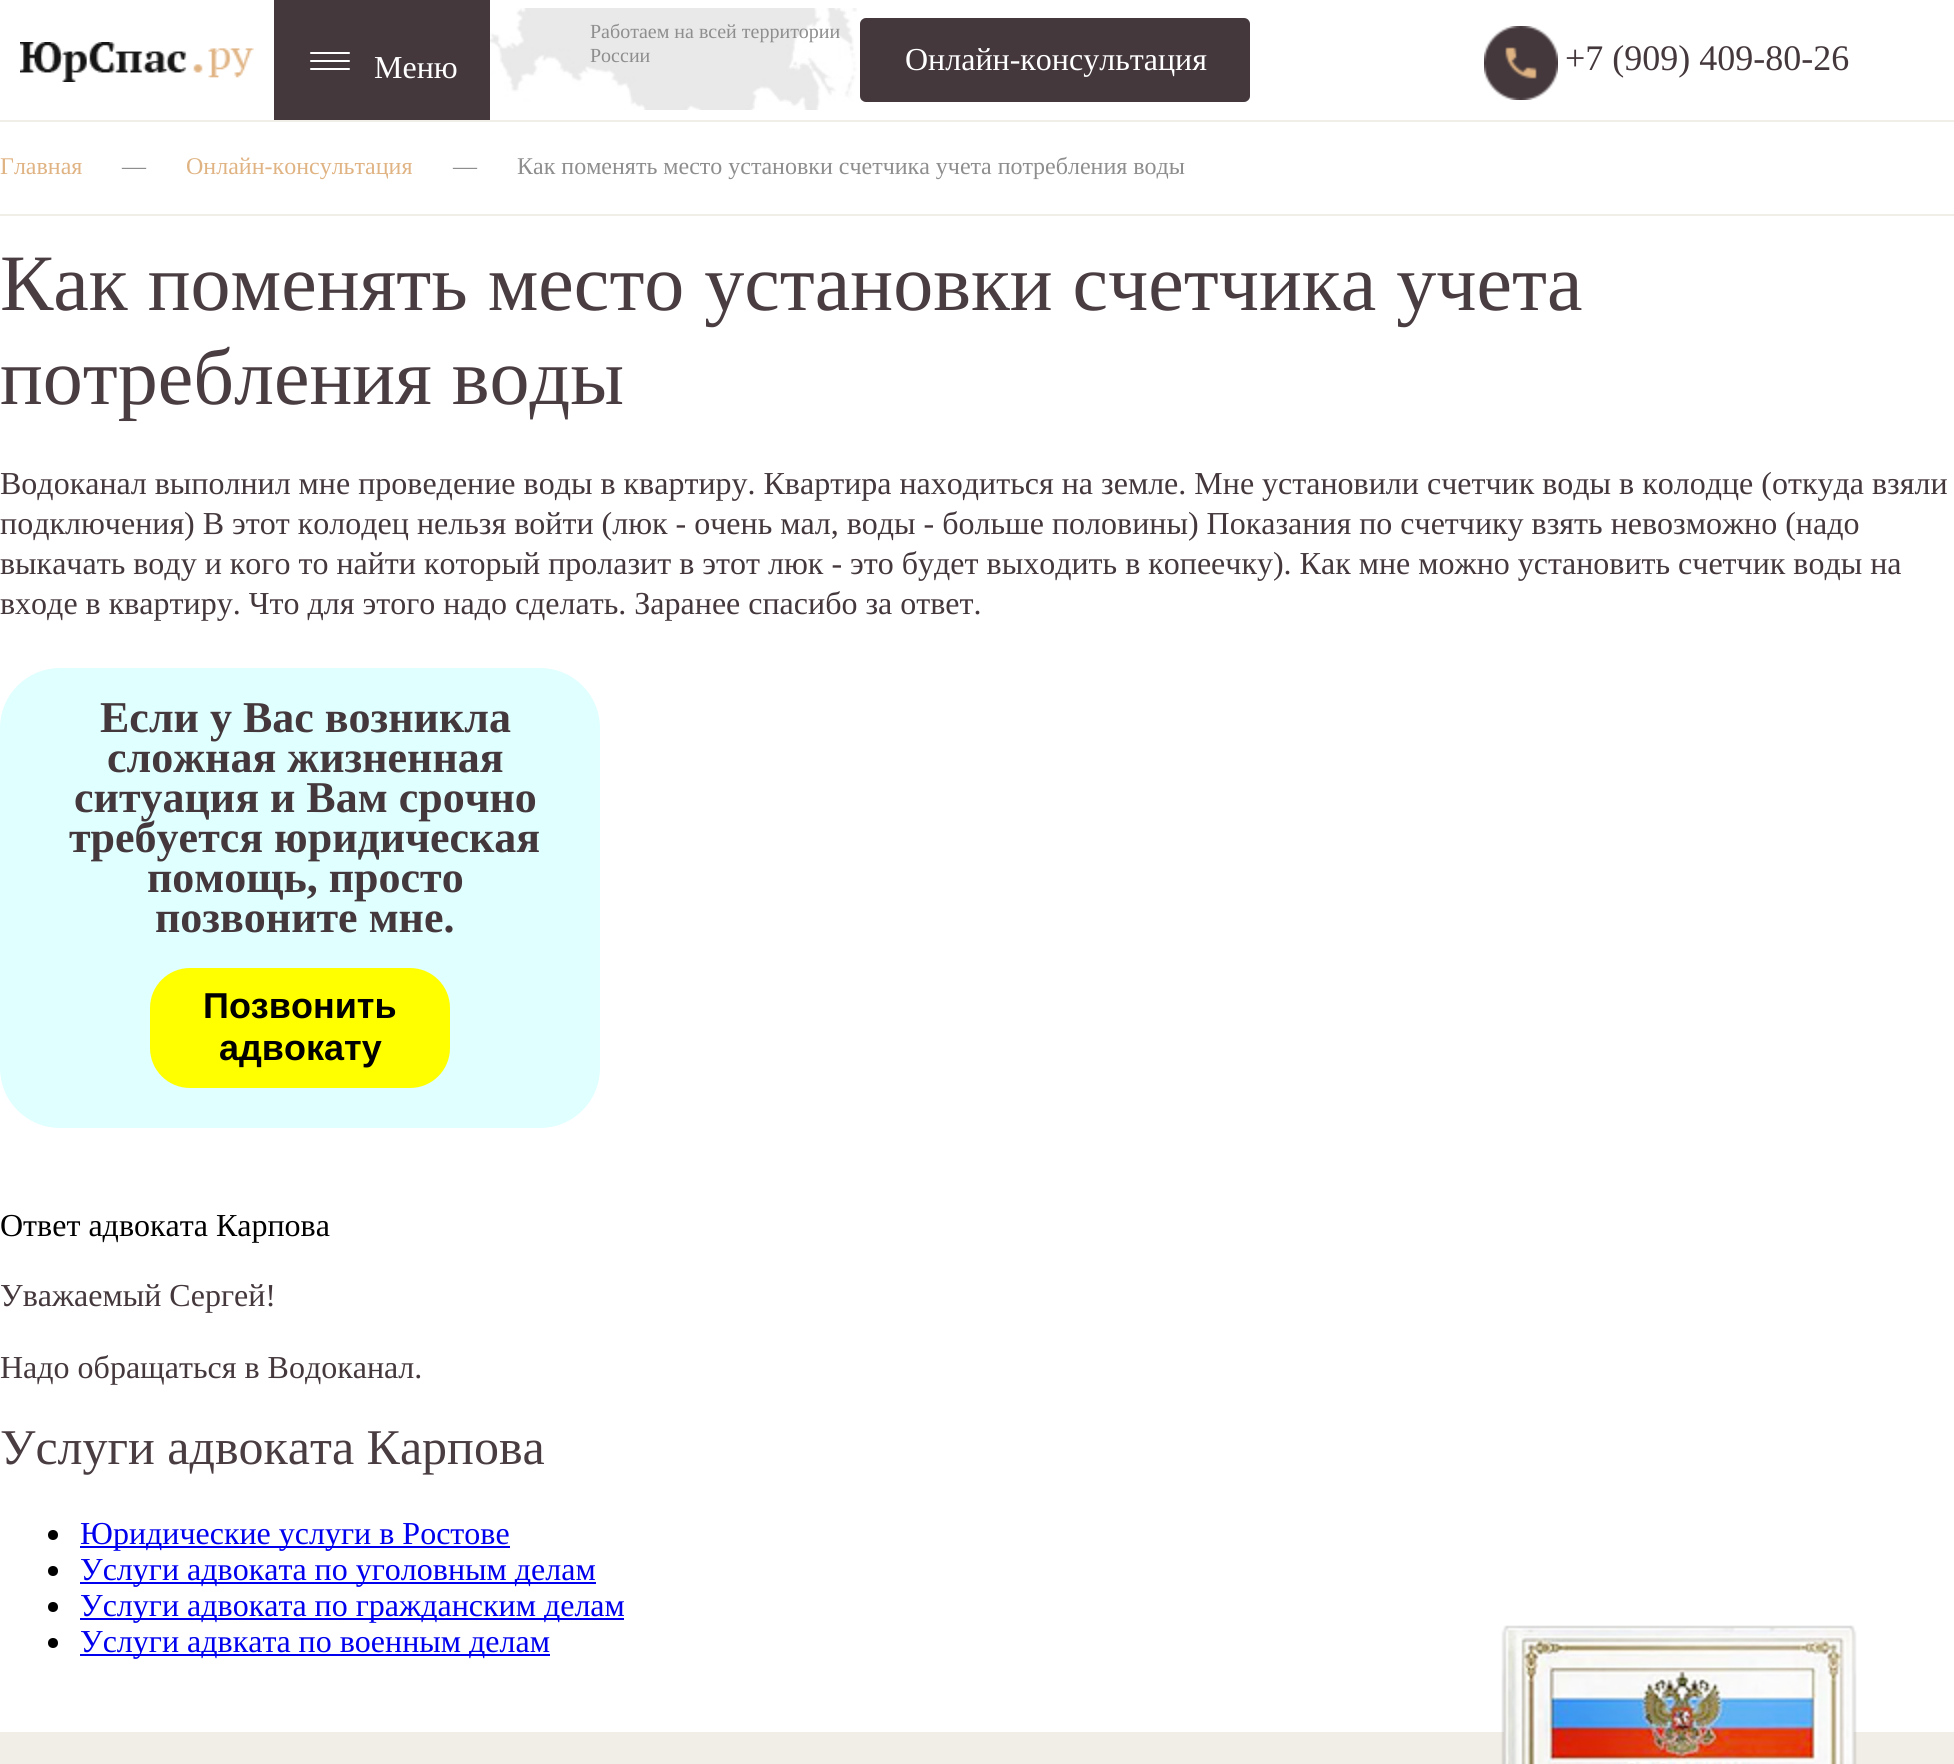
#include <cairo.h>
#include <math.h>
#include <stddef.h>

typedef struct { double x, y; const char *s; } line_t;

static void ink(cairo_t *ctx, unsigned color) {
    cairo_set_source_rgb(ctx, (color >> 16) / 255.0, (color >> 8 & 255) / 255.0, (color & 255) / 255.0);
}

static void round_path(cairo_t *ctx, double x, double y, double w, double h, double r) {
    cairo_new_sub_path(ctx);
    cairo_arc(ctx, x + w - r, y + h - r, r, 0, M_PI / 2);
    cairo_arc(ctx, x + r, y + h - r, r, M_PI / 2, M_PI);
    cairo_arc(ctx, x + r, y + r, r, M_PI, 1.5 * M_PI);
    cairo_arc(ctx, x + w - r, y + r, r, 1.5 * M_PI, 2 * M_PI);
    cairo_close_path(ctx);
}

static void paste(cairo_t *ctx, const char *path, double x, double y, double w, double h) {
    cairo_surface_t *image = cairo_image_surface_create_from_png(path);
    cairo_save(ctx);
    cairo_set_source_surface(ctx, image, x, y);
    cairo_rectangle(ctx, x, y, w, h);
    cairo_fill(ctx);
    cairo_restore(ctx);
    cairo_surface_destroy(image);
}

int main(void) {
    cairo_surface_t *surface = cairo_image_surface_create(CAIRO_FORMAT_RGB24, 1954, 1764);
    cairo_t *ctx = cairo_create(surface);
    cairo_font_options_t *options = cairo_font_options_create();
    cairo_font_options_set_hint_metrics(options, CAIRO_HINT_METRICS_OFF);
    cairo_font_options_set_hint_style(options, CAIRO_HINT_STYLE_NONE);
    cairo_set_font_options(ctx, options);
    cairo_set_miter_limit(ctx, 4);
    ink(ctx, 0xFFFFFF);
    cairo_paint(ctx);
    paste(ctx, "media/1.png", 20, 42, 234, 40);
    ink(ctx, 0x44383C);
    cairo_rectangle(ctx, 274, 0, 216, 120);
    cairo_fill(ctx);
    ink(ctx, 0xFFFFFF);
    round_path(ctx, 310, 68, 40, 2, 1);
    cairo_fill(ctx);
    round_path(ctx, 310, 60, 40, 2, 1);
    cairo_fill(ctx);
    round_path(ctx, 310, 52, 40, 2, 1);
    cairo_fill(ctx);
    cairo_select_font_face(ctx, "Liberation Serif", CAIRO_FONT_SLANT_NORMAL, CAIRO_FONT_WEIGHT_NORMAL);
    cairo_set_font_size(ctx, 32);
    cairo_move_to(ctx, 374, 78);
    cairo_show_text(ctx, "Меню");
    paste(ctx, "media/2.png", 490, 8, 367, 102);
    cairo_set_font_size(ctx, 20);
    ink(ctx, 0x8E8E8E);
    cairo_move_to(ctx, 590, 38);
    cairo_show_text(ctx, "Работаем на всей территории");
    cairo_move_to(ctx, 590, 62);
    cairo_show_text(ctx, "России");
    ink(ctx, 0x44383C);
    round_path(ctx, 862, 20, 386, 80, 4);
    cairo_fill_preserve(ctx);
    cairo_set_line_width(ctx, 4);
    cairo_stroke(ctx);
    cairo_set_font_size(ctx, 32);
    ink(ctx, 0xFFFFFF);
    cairo_move_to(ctx, 905, 70);
    cairo_show_text(ctx, "Онлайн-консультация");
    paste(ctx, "media/3.png", 1484, 26, 74, 74);
    cairo_set_font_size(ctx, 36);
    ink(ctx, 0x44383C);
    cairo_move_to(ctx, 1565, 70);
    cairo_show_text(ctx, "+7 (909) 409-80-26");
    ink(ctx, 0xF1EEE7);
    cairo_rectangle(ctx, 0, 120, 1954, 2);
    cairo_fill(ctx);
    cairo_rectangle(ctx, 0, 214, 1954, 2);
    cairo_fill(ctx);
    cairo_set_font_size(ctx, 24);
    ink(ctx, 0xE0B383);
    cairo_move_to(ctx, 0, 174);
    cairo_show_text(ctx, "Главная");
    ink(ctx, 0x8E8E8E);
    cairo_move_to(ctx, 122, 174);
    cairo_show_text(ctx, "—");
    ink(ctx, 0xE0B383);
    cairo_move_to(ctx, 186, 174);
    cairo_show_text(ctx, "Онлайн-консультация");
    ink(ctx, 0x8E8E8E);
    cairo_move_to(ctx, 453, 174);
    cairo_show_text(ctx, "—");
    cairo_move_to(ctx, 517, 174);
    cairo_show_text(ctx, "Как поменять место установки счетчика учета потребления воды");
    cairo_set_font_size(ctx, 80);
    ink(ctx, 0x4A3D41);
    cairo_move_to(ctx, 0, 310);
    cairo_show_text(ctx, "Как поменять место установки счетчика учета");
    cairo_move_to(ctx, 0, 404);
    cairo_show_text(ctx, "потребления воды");
    cairo_set_font_size(ctx, 32);
    ink(ctx, 0x44383C);
    {
        static const line_t items[] = {
            {0, 494, "Водоканал выполнил мне проведение воды в квартиру. Квартира находиться на земле. Мне установили счетчик воды в колодце (откуда взяли"},
            {0, 534, "подключения) В этот колодец нельзя войти (люк - очень мал, воды - больше половины) Показания по счетчику взять невозможно (надо"},
            {0, 574, "выкачать воду и кого то найти который пролазит в этот люк - это будет выходить в копеечку). Как мне можно установить счетчик воды на"},
            {0, 614, "входе в квартиру. Что для этого надо сделать. Заранее спасибо за ответ."},
        };
        for (size_t i = 0; i < sizeof items / sizeof *items; i++) {
            cairo_move_to(ctx, items[i].x, items[i].y);
            cairo_show_text(ctx, items[i].s);
        }
    }
    ink(ctx, 0xE0FFFF);
    round_path(ctx, 0, 668, 600, 460, 60);
    cairo_fill(ctx);
    cairo_select_font_face(ctx, "Liberation Serif", CAIRO_FONT_SLANT_NORMAL, CAIRO_FONT_WEIGHT_BOLD);
    cairo_set_font_size(ctx, 44);
    ink(ctx, 0x44383C);
    {
        static const line_t items[] = {
            {100, 732, "Если у Вас возникла"},
            {107, 772, "сложная жизненная"},
            {74, 812, "ситуация и Вам срочно"},
            {69, 852, "требуется юридическая"},
            {147, 892, "помощь, просто"},
            {155, 932, "позвоните мне."},
        };
        for (size_t i = 0; i < sizeof items / sizeof *items; i++) {
            cairo_move_to(ctx, items[i].x, items[i].y);
            cairo_show_text(ctx, items[i].s);
        }
    }
    ink(ctx, 0xFFFF00);
    round_path(ctx, 150, 968, 300, 120, 40);
    cairo_fill(ctx);
    cairo_select_font_face(ctx, "Liberation Sans", CAIRO_FONT_SLANT_NORMAL, CAIRO_FONT_WEIGHT_BOLD);
    cairo_set_font_size(ctx, 36);
    ink(ctx, 0x000000);
    cairo_move_to(ctx, 203, 1018);
    cairo_show_text(ctx, "Позвонить");
    cairo_move_to(ctx, 219, 1060);
    cairo_show_text(ctx, "адвокату");
    cairo_select_font_face(ctx, "Liberation Serif", CAIRO_FONT_SLANT_NORMAL, CAIRO_FONT_WEIGHT_NORMAL);
    cairo_set_font_size(ctx, 32);
    cairo_move_to(ctx, 0, 1236);
    cairo_show_text(ctx, "Ответ адвоката Карпова");
    ink(ctx, 0x44383C);
    cairo_move_to(ctx, 0, 1306);
    cairo_show_text(ctx, "Уважаемый Сергей!");
    cairo_move_to(ctx, 0, 1378);
    cairo_show_text(ctx, "Надо обращаться в Водоканал.");
    cairo_set_font_size(ctx, 50);
    ink(ctx, 0x4A3D41);
    cairo_move_to(ctx, 0, 1464);
    cairo_show_text(ctx, "Услуги адвоката Карпова");
    ink(ctx, 0x000000);
    cairo_new_path(ctx);
    cairo_arc(ctx, 53, 1535, 5, 0, 2 * M_PI);
    cairo_fill(ctx);
    ink(ctx, 0x0000EE);
    cairo_rectangle(ctx, 80, 1546, 430, 2);
    cairo_fill(ctx);
    cairo_set_font_size(ctx, 32);
    cairo_move_to(ctx, 80, 1544);
    cairo_show_text(ctx, "Юридические услуги в Ростове");
    ink(ctx, 0x000000);
    cairo_new_path(ctx);
    cairo_arc(ctx, 53, 1571, 5, 0, 2 * M_PI);
    cairo_fill(ctx);
    ink(ctx, 0x0000EE);
    cairo_rectangle(ctx, 80, 1582, 516, 2);
    cairo_fill(ctx);
    cairo_move_to(ctx, 80, 1580);
    cairo_show_text(ctx, "Услуги адвоката по уголовным делам");
    ink(ctx, 0x000000);
    cairo_new_path(ctx);
    cairo_arc(ctx, 53, 1607, 5, 0, 2 * M_PI);
    cairo_fill(ctx);
    ink(ctx, 0x0000EE);
    cairo_rectangle(ctx, 80, 1618, 544, 2);
    cairo_fill(ctx);
    cairo_move_to(ctx, 80, 1616);
    cairo_show_text(ctx, "Услуги адвоката по гражданским делам");
    ink(ctx, 0x000000);
    cairo_new_path(ctx);
    cairo_arc(ctx, 53, 1643, 5, 0, 2 * M_PI);
    cairo_fill(ctx);
    ink(ctx, 0x0000EE);
    cairo_rectangle(ctx, 80, 1654, 470, 2);
    cairo_fill(ctx);
    cairo_move_to(ctx, 80, 1652);
    cairo_show_text(ctx, "Услуги адвката по военным делам");
    ink(ctx, 0xF1EEE7);
    cairo_rectangle(ctx, 0, 1732, 1954, 32);
    cairo_fill(ctx);
    paste(ctx, "media/4.png", 1501, 1625, 356, 139);
    cairo_surface_write_to_png(surface, "image.png");
    cairo_font_options_destroy(options);
    cairo_destroy(ctx);
    cairo_surface_destroy(surface);
    return 0;
}
